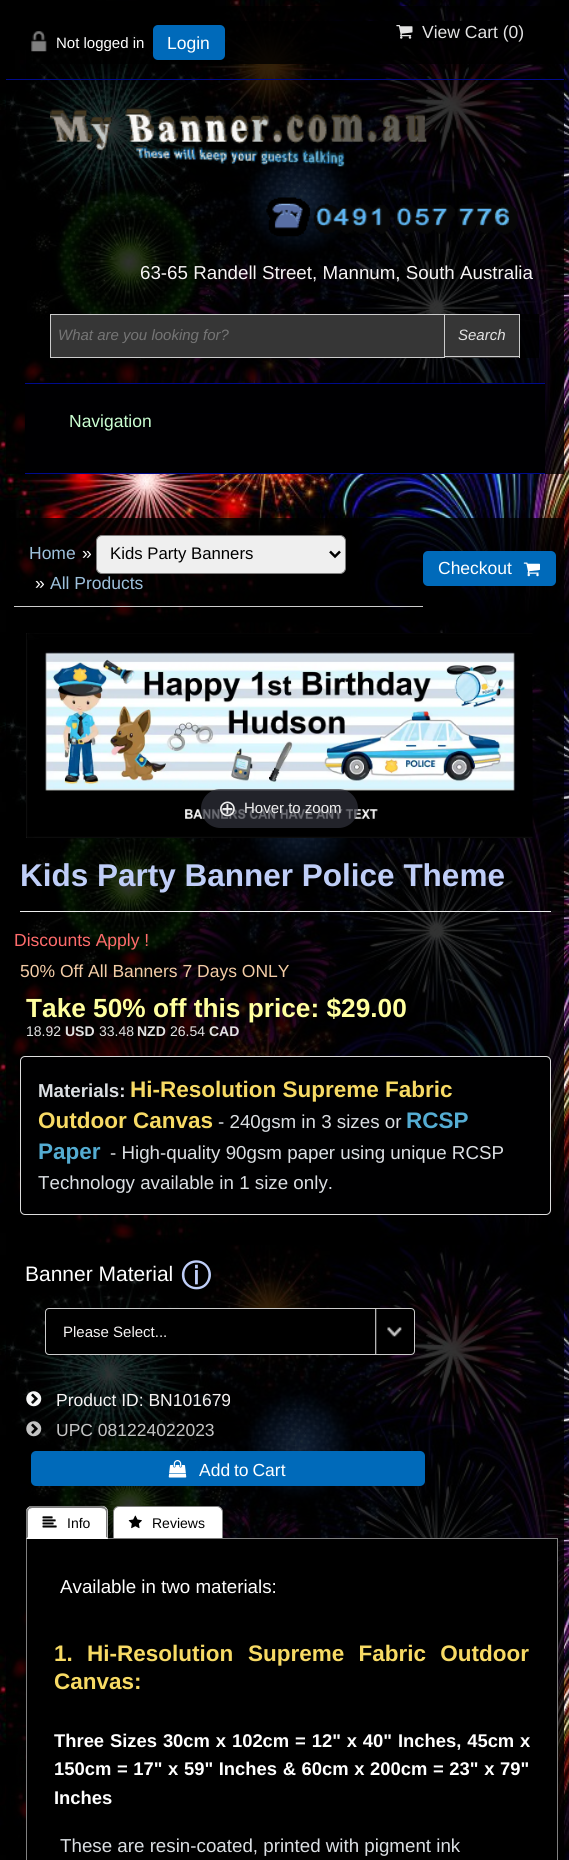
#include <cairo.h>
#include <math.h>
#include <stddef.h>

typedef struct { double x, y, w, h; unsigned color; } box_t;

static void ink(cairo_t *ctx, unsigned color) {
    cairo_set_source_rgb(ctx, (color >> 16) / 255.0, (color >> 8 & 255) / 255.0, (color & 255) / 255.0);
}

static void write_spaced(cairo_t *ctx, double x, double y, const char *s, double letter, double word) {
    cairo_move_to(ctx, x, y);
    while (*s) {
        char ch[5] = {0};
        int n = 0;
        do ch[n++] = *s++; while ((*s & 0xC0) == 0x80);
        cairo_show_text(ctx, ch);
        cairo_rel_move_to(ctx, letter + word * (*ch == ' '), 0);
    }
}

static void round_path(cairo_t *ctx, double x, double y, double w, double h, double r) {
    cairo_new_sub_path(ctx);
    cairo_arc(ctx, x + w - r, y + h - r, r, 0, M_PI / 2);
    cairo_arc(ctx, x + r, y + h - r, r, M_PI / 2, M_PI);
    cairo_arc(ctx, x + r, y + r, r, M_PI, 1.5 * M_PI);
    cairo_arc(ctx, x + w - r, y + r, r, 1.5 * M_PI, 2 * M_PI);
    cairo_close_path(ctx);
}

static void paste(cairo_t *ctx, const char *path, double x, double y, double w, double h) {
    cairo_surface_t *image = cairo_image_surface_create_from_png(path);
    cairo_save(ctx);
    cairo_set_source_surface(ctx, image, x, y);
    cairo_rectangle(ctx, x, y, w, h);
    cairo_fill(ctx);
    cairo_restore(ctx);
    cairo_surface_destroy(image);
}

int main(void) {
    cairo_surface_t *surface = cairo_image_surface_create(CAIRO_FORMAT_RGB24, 569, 1860);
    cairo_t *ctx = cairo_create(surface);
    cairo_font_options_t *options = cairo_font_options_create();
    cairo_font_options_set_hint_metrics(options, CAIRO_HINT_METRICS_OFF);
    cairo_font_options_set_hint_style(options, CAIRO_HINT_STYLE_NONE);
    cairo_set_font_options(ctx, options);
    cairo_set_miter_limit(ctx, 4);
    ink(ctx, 0xFFFFFF);
    cairo_paint(ctx);
    paste(ctx, "media/1.png", 0, 0, 569, 1860);
    cairo_set_source_rgba(ctx, 0, 0, 0, 0.8);
    cairo_rectangle(ctx, 26, 6, 538, 73);
    cairo_fill(ctx);
    ink(ctx, 0x000B8C);
    cairo_rectangle(ctx, 6, 79, 558, 1);
    cairo_fill(ctx);
    cairo_set_source_rgba(ctx, 0, 0, 0, 0.8);
    cairo_rectangle(ctx, 33, 21, 530, 43);
    cairo_fill(ctx);
    ink(ctx, 0x000001);
    cairo_rectangle(ctx, 370, 21, 133, 20);
    cairo_fill(ctx);
    paste(ctx, "media/2.png", 396, 25, 17, 14);
    cairo_select_font_face(ctx, "Liberation Sans", CAIRO_FONT_SLANT_NORMAL, CAIRO_FONT_WEIGHT_NORMAL);
    cairo_set_font_size(ctx, 17.5);
    ink(ctx, 0xE3E3E3);
    cairo_move_to(ctx, 422, 38);
    cairo_show_text(ctx, "View Cart (0)");
    paste(ctx, "media/3.png", 31, 31, 16, 21);
    cairo_set_font_size(ctx, 15);
    ink(ctx, 0xFFFFFF);
    cairo_move_to(ctx, 56, 48);
    cairo_show_text(ctx, "Not logged in");
    ink(ctx, 0x006ABA);
    round_path(ctx, 153, 25, 72, 35, 5);
    cairo_fill(ctx);
    cairo_set_font_size(ctx, 17.5);
    ink(ctx, 0xFFFFFF);
    cairo_move_to(ctx, 167, 49);
    cairo_show_text(ctx, "Login");
    cairo_set_source_rgba(ctx, 0, 0, 0, 0.8);
    cairo_rectangle(ctx, 6, 80, 558, 394);
    cairo_fill(ctx);
    paste(ctx, "media/4.png", 50, 107, 377, 60);
    paste(ctx, "media/5.png", 266, 197, 45, 40);
    paste(ctx, "media/6.png", 313, 203, 205, 31);
    cairo_set_font_size(ctx, 18.75);
    ink(ctx, 0xF7F4F4);
    cairo_move_to(ctx, 140, 279);
    cairo_show_text(ctx, "63-65 Randell Street, Mannum, South Australia");
    cairo_set_source_rgba(ctx, 0, 0, 0, 0.8);
    cairo_rectangle(ctx, 82, 314, 457, 44);
    cairo_fill(ctx);
    ink(ctx, 0x363636);
    cairo_rectangle(ctx, 50.5, 314.5, 394, 43);
    cairo_fill_preserve(ctx);
    ink(ctx, 0xCCCCCC);
    cairo_set_line_width(ctx, 1);
    cairo_stroke(ctx);
    cairo_select_font_face(ctx, "Liberation Sans", CAIRO_FONT_SLANT_ITALIC, CAIRO_FONT_WEIGHT_NORMAL);
    cairo_set_font_size(ctx, 15);
    ink(ctx, 0x757575);
    cairo_move_to(ctx, 58, 340);
    cairo_show_text(ctx, "What are you looking for?");
    {
        static const box_t items[] = {
            {445, 315, 74, 43, 0x363636},
            {445, 314, 75, 1, 0xCCCCCC},
            {519, 314, 1, 44, 0xCCCCCC},
            {445, 356, 75, 1, 0xCCCCCC},
        };
        for (size_t i = 0; i < sizeof items / sizeof *items; i++) {
            ink(ctx, items[i].color);
            cairo_rectangle(ctx, items[i].x, items[i].y, items[i].w, items[i].h);
            cairo_fill(ctx);
        }
    }
    ink(ctx, 0xE3E3E3);
    cairo_move_to(ctx, 458, 340);
    cairo_show_text(ctx, "Search");
    {
        static const box_t items[] = {
            {25, 384, 520, 89, 0x000002},
            {25, 383, 520, 1, 0x000B8C},
            {25, 473, 520, 1, 0x000B8C},
        };
        for (size_t i = 0; i < sizeof items / sizeof *items; i++) {
            ink(ctx, items[i].color);
            cairo_rectangle(ctx, items[i].x, items[i].y, items[i].w, items[i].h);
            cairo_fill(ctx);
        }
    }
    cairo_select_font_face(ctx, "Liberation Sans", CAIRO_FONT_SLANT_NORMAL, CAIRO_FONT_WEIGHT_NORMAL);
    cairo_set_font_size(ctx, 17.5);
    ink(ctx, 0xCBFFD2);
    cairo_move_to(ctx, 69, 427);
    cairo_show_text(ctx, "Navigation");
    cairo_set_source_rgba(ctx, 0, 0, 0, 0.8);
    cairo_rectangle(ctx, 6, 518, 558, 1342);
    cairo_fill(ctx);
    ink(ctx, 0xCCCCCC);
    cairo_rectangle(ctx, 14, 606, 409, 1);
    cairo_fill(ctx);
    ink(ctx, 0x9EC1DC);
    cairo_move_to(ctx, 29, 559);
    cairo_show_text(ctx, "Home");
    ink(ctx, 0xFFFFFF);
    cairo_move_to(ctx, 82, 559);
    cairo_show_text(ctx, "»");
    ink(ctx, 0xEFEFEF);
    round_path(ctx, 96.5, 535.5, 249, 38, 5.5);
    cairo_fill_preserve(ctx);
    ink(ctx, 0x808080);
    cairo_stroke(ctx);
    cairo_new_path(ctx);
    cairo_move_to(ctx, 330, 551.5);
    cairo_line_to(ctx, 335, 556.5);
    cairo_line_to(ctx, 340, 551.5);
    ink(ctx, 0x000000);
    cairo_set_line_width(ctx, 2.5);
    cairo_stroke(ctx);
    cairo_set_font_size(ctx, 16.75);
    cairo_move_to(ctx, 110, 559);
    cairo_show_text(ctx, "Kids Party Banners");
    cairo_set_font_size(ctx, 17.5);
    ink(ctx, 0xFFFFFF);
    cairo_move_to(ctx, 35, 589);
    cairo_show_text(ctx, "»");
    ink(ctx, 0x9EC1DC);
    cairo_move_to(ctx, 50, 589);
    cairo_show_text(ctx, "All Products");
    ink(ctx, 0x006ABA);
    round_path(ctx, 423, 551, 133, 35, 5);
    cairo_fill(ctx);
    ink(ctx, 0xFFFFFF);
    cairo_move_to(ctx, 438, 574);
    cairo_show_text(ctx, "Checkout");
    paste(ctx, "media/7.png", 523, 562, 17, 15);
    paste(ctx, "media/8.png", 26, 633, 507, 205);
    cairo_set_source_rgba(ctx, 0.192, 0.2, 0.239, 0.7);
    round_path(ctx, 201, 789, 157, 39, 19.5);
    cairo_fill(ctx);
    cairo_select_font_face(ctx, "DejaVu Sans", CAIRO_FONT_SLANT_NORMAL, CAIRO_FONT_WEIGHT_NORMAL);
    cairo_set_font_size(ctx, 22.5);
    ink(ctx, 0xEEEEEE);
    cairo_move_to(ctx, 218, 816);
    cairo_show_text(ctx, "⊕");
    cairo_select_font_face(ctx, "Liberation Sans", CAIRO_FONT_SLANT_NORMAL, CAIRO_FONT_WEIGHT_NORMAL);
    cairo_set_font_size(ctx, 15);
    cairo_move_to(ctx, 244, 813);
    cairo_show_text(ctx, "Hover to zoom");
    cairo_rectangle(ctx, 20, 911, 531, 1);
    cairo_fill(ctx);
    cairo_select_font_face(ctx, "Liberation Sans", CAIRO_FONT_SLANT_NORMAL, CAIRO_FONT_WEIGHT_BOLD);
    cairo_set_font_size(ctx, 31.5);
    ink(ctx, 0xBFCEF8);
    cairo_move_to(ctx, 20, 886);
    cairo_show_text(ctx, "Kids Party Banner Police Theme");
    cairo_select_font_face(ctx, "Liberation Sans", CAIRO_FONT_SLANT_NORMAL, CAIRO_FONT_WEIGHT_NORMAL);
    cairo_set_font_size(ctx, 17.5);
    ink(ctx, 0xFF6C6C);
    cairo_move_to(ctx, 14, 946);
    cairo_show_text(ctx, "Discounts Apply !");
    ink(ctx, 0xF4CDA7);
    cairo_move_to(ctx, 20, 977);
    cairo_show_text(ctx, "50% Off All Banners 7 Days ONLY");
    cairo_select_font_face(ctx, "Liberation Sans", CAIRO_FONT_SLANT_NORMAL, CAIRO_FONT_WEIGHT_BOLD);
    cairo_set_font_size(ctx, 26.25);
    ink(ctx, 0xFFFF9E);
    cairo_move_to(ctx, 26, 1017);
    cairo_show_text(ctx, "Take 50% off this price: $29.00");
    cairo_select_font_face(ctx, "Liberation Sans", CAIRO_FONT_SLANT_NORMAL, CAIRO_FONT_WEIGHT_NORMAL);
    cairo_set_font_size(ctx, 14);
    ink(ctx, 0xE3E3E3);
    cairo_move_to(ctx, 26, 1036);
    cairo_show_text(ctx, "18.92");
    cairo_select_font_face(ctx, "Liberation Sans", CAIRO_FONT_SLANT_NORMAL, CAIRO_FONT_WEIGHT_BOLD);
    cairo_move_to(ctx, 65, 1036);
    cairo_show_text(ctx, "USD");
    cairo_select_font_face(ctx, "Liberation Sans", CAIRO_FONT_SLANT_NORMAL, CAIRO_FONT_WEIGHT_NORMAL);
    cairo_move_to(ctx, 99, 1036);
    cairo_show_text(ctx, "33.48");
    cairo_select_font_face(ctx, "Liberation Sans", CAIRO_FONT_SLANT_NORMAL, CAIRO_FONT_WEIGHT_BOLD);
    cairo_move_to(ctx, 137, 1036);
    cairo_show_text(ctx, "NZD");
    cairo_select_font_face(ctx, "Liberation Sans", CAIRO_FONT_SLANT_NORMAL, CAIRO_FONT_WEIGHT_NORMAL);
    cairo_move_to(ctx, 170, 1036);
    cairo_show_text(ctx, "26.54");
    cairo_select_font_face(ctx, "Liberation Sans", CAIRO_FONT_SLANT_NORMAL, CAIRO_FONT_WEIGHT_BOLD);
    cairo_move_to(ctx, 209, 1036);
    cairo_show_text(ctx, "CAD");
    ink(ctx, 0x000001);
    round_path(ctx, 20.5, 1056.5, 530, 158, 4.5);
    cairo_fill_preserve(ctx);
    ink(ctx, 0xDDDDDD);
    cairo_set_line_width(ctx, 1);
    cairo_stroke(ctx);
    cairo_set_font_size(ctx, 18.75);
    ink(ctx, 0xDBDFE3);
    cairo_move_to(ctx, 38, 1097);
    cairo_show_text(ctx, "Materials:");
    cairo_set_font_size(ctx, 22.5);
    ink(ctx, 0xF7DA64);
    cairo_move_to(ctx, 130, 1097);
    cairo_show_text(ctx, "Hi-Resolution Supreme Fabric");
    cairo_move_to(ctx, 38, 1128);
    cairo_show_text(ctx, "Outdoor Canvas");
    cairo_select_font_face(ctx, "Liberation Sans", CAIRO_FONT_SLANT_NORMAL, CAIRO_FONT_WEIGHT_NORMAL);
    cairo_set_font_size(ctx, 18.75);
    ink(ctx, 0xDBDFE3);
    cairo_move_to(ctx, 218, 1128);
    cairo_show_text(ctx, "- 240gsm in 3 sizes or");
    cairo_select_font_face(ctx, "Liberation Sans", CAIRO_FONT_SLANT_NORMAL, CAIRO_FONT_WEIGHT_BOLD);
    cairo_set_font_size(ctx, 22.5);
    ink(ctx, 0x54ACD2);
    cairo_move_to(ctx, 406, 1128);
    cairo_show_text(ctx, "RCSP");
    cairo_move_to(ctx, 38, 1159);
    cairo_show_text(ctx, "Paper");
    cairo_select_font_face(ctx, "Liberation Sans", CAIRO_FONT_SLANT_NORMAL, CAIRO_FONT_WEIGHT_NORMAL);
    cairo_set_font_size(ctx, 18.75);
    ink(ctx, 0xDBDFE3);
    cairo_move_to(ctx, 110, 1159);
    cairo_show_text(ctx, "- High-quality 90gsm paper using unique RCSP");
    cairo_move_to(ctx, 38, 1189);
    cairo_show_text(ctx, "Technology available in 1 size only.");
    cairo_set_font_size(ctx, 21);
    ink(ctx, 0xFFFFFF);
    cairo_move_to(ctx, 25, 1281);
    cairo_show_text(ctx, "Banner Material");
    cairo_select_font_face(ctx, "WenQuanYi Zen Hei", CAIRO_FONT_SLANT_NORMAL, CAIRO_FONT_WEIGHT_BOLD);
    cairo_set_font_size(ctx, 30);
    ink(ctx, 0xBFCEF8);
    cairo_move_to(ctx, 181, 1286);
    cairo_show_text(ctx, "ⓘ");
    ink(ctx, 0x000000);
    round_path(ctx, 45, 1308, 370, 47, 4);
    cairo_fill(ctx);
    paste(ctx, "media/9.png", 375, 1309, 27, 45);
    round_path(ctx, 45.5, 1308.5, 369, 46, 3.5);
    ink(ctx, 0xCCCCCC);
    cairo_stroke(ctx);
    cairo_select_font_face(ctx, "Liberation Sans", CAIRO_FONT_SLANT_NORMAL, CAIRO_FONT_WEIGHT_NORMAL);
    cairo_set_font_size(ctx, 15);
    ink(ctx, 0xF7F4F4);
    cairo_move_to(ctx, 63, 1337);
    cairo_show_text(ctx, "Please Select...");
    paste(ctx, "media/10.png", 26, 1391, 16, 16);
    cairo_set_font_size(ctx, 17.5);
    cairo_move_to(ctx, 56, 1406);
    cairo_show_text(ctx, "Product ID: BN101679");
    paste(ctx, "media/11.png", 26, 1421, 16, 16);
    ink(ctx, 0xC4C4C4);
    cairo_move_to(ctx, 56, 1436);
    cairo_show_text(ctx, "UPC 081224022023");
    ink(ctx, 0x006ABA);
    round_path(ctx, 31, 1451, 394, 35, 5);
    cairo_fill(ctx);
    paste(ctx, "media/12.png", 168, 1460, 19, 18);
    ink(ctx, 0xFFFFFF);
    write_spaced(ctx, 199, 1476, "Add to Cart", 0, -1);
    ink(ctx, 0x000000);
    cairo_rectangle(ctx, 26.5, 1538.5, 531, 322);
    cairo_fill_preserve(ctx);
    ink(ctx, 0x808080);
    cairo_stroke(ctx);
    ink(ctx, 0xFFFFFF);
    cairo_new_path(ctx);
    cairo_move_to(ctx, 32, 1506);
    cairo_line_to(ctx, 102, 1506);
    cairo_curve_to(ctx, 105.5, 1506, 108, 1508.5, 108, 1512);
    cairo_line_to(ctx, 108, 1539);
    cairo_line_to(ctx, 26, 1539);
    cairo_line_to(ctx, 26, 1512);
    cairo_curve_to(ctx, 26, 1508.5, 28.5, 1506, 32, 1506);
    cairo_close_path(ctx);
    cairo_fill(ctx);
    ink(ctx, 0x808080);
    cairo_new_path(ctx);
    cairo_move_to(ctx, 32, 1508);
    cairo_line_to(ctx, 29, 1509);
    cairo_line_to(ctx, 28, 1508);
    cairo_line_to(ctx, 30, 1506);
    cairo_line_to(ctx, 103, 1506);
    cairo_line_to(ctx, 106, 1508);
    cairo_line_to(ctx, 105, 1509);
    cairo_line_to(ctx, 101, 1508);
    cairo_close_path(ctx);
    cairo_fill(ctx);
    cairo_new_path(ctx);
    cairo_move_to(ctx, 106, 1508);
    cairo_line_to(ctx, 107.5, 1510);
    cairo_line_to(ctx, 107.5, 1539);
    cairo_line_to(ctx, 106, 1537);
    cairo_line_to(ctx, 106, 1512);
    cairo_curve_to(ctx, 106, 1511, 105.5, 1510, 104.5, 1509);
    cairo_close_path(ctx);
    cairo_fill(ctx);
    ink(ctx, 0xFFFFFF);
    cairo_new_path(ctx);
    cairo_move_to(ctx, 108, 1539);
    cairo_line_to(ctx, 106, 1537);
    cairo_line_to(ctx, 106, 1538);
    cairo_line_to(ctx, 28, 1538);
    cairo_line_to(ctx, 28, 1537);
    cairo_line_to(ctx, 26, 1539);
    cairo_close_path(ctx);
    cairo_fill(ctx);
    ink(ctx, 0x808080);
    cairo_new_path(ctx);
    cairo_move_to(ctx, 26, 1539);
    cairo_line_to(ctx, 26, 1510.5);
    cairo_line_to(ctx, 28, 1508);
    cairo_line_to(ctx, 29, 1509);
    cairo_curve_to(ctx, 28.5, 1510, 28, 1511, 28, 1512);
    cairo_line_to(ctx, 28, 1537);
    cairo_close_path(ctx);
    cairo_fill(ctx);
    paste(ctx, "media/13.png", 42, 1516, 15, 12);
    cairo_set_font_size(ctx, 14);
    ink(ctx, 0x000000);
    cairo_move_to(ctx, 67, 1528);
    cairo_show_text(ctx, "Info");
    ink(ctx, 0xFFFFFF);
    cairo_new_path(ctx);
    cairo_move_to(ctx, 119, 1506.5);
    cairo_line_to(ctx, 217, 1506.5);
    cairo_curve_to(ctx, 220, 1506.5, 222.5, 1509, 222.5, 1512);
    cairo_line_to(ctx, 222.5, 1538.5);
    cairo_line_to(ctx, 113.5, 1538.5);
    cairo_line_to(ctx, 113.5, 1512);
    cairo_curve_to(ctx, 113.5, 1509, 116, 1506.5, 119, 1506.5);
    cairo_close_path(ctx);
    cairo_fill_preserve(ctx);
    ink(ctx, 0x808080);
    cairo_stroke(ctx);
    paste(ctx, "media/14.png", 128, 1515, 14, 14);
    ink(ctx, 0x000000);
    cairo_move_to(ctx, 152, 1528);
    cairo_show_text(ctx, "Reviews");
    cairo_set_font_size(ctx, 18.75);
    ink(ctx, 0xFFFFFF);
    cairo_move_to(ctx, 60, 1593);
    cairo_show_text(ctx, "Available in two materials:");
    cairo_select_font_face(ctx, "Liberation Sans", CAIRO_FONT_SLANT_NORMAL, CAIRO_FONT_WEIGHT_BOLD);
    cairo_set_font_size(ctx, 22.5);
    ink(ctx, 0xF7DA64);
    write_spaced(ctx, 54, 1661, "1. Hi-", 0, 8);
    cairo_move_to(ctx, 117, 1661);
    cairo_show_text(ctx, "Resolution");
    write_spaced(ctx, 248, 1661, "Supreme Fabric Outdoor", 0, 8);
    cairo_move_to(ctx, 54, 1689);
    cairo_show_text(ctx, "Canvas:");
    cairo_set_font_size(ctx, 18.4);
    ink(ctx, 0xFFFFFF);
    write_spaced(ctx, 54, 1747, "Three Sizes 30cm x 102cm = 12\" x 40\" Inches, 45cm x", 0, 0.75);
    write_spaced(ctx, 54, 1775, "150cm = 17\" x 59\" Inches & 60cm x 200cm = 23\" x 79\"", 0, 0.5);
    cairo_move_to(ctx, 54, 1804);
    cairo_show_text(ctx, "Inches");
    cairo_select_font_face(ctx, "Liberation Sans", CAIRO_FONT_SLANT_NORMAL, CAIRO_FONT_WEIGHT_NORMAL);
    cairo_set_font_size(ctx, 18.75);
    ink(ctx, 0xDBDFE3);
    cairo_move_to(ctx, 60, 1852);
    cairo_show_text(ctx, "These are resin-coated, printed with pigment ink");
    cairo_surface_write_to_png(surface, "image.png");
    cairo_font_options_destroy(options);
    cairo_destroy(ctx);
    cairo_surface_destroy(surface);
    return 0;
}
